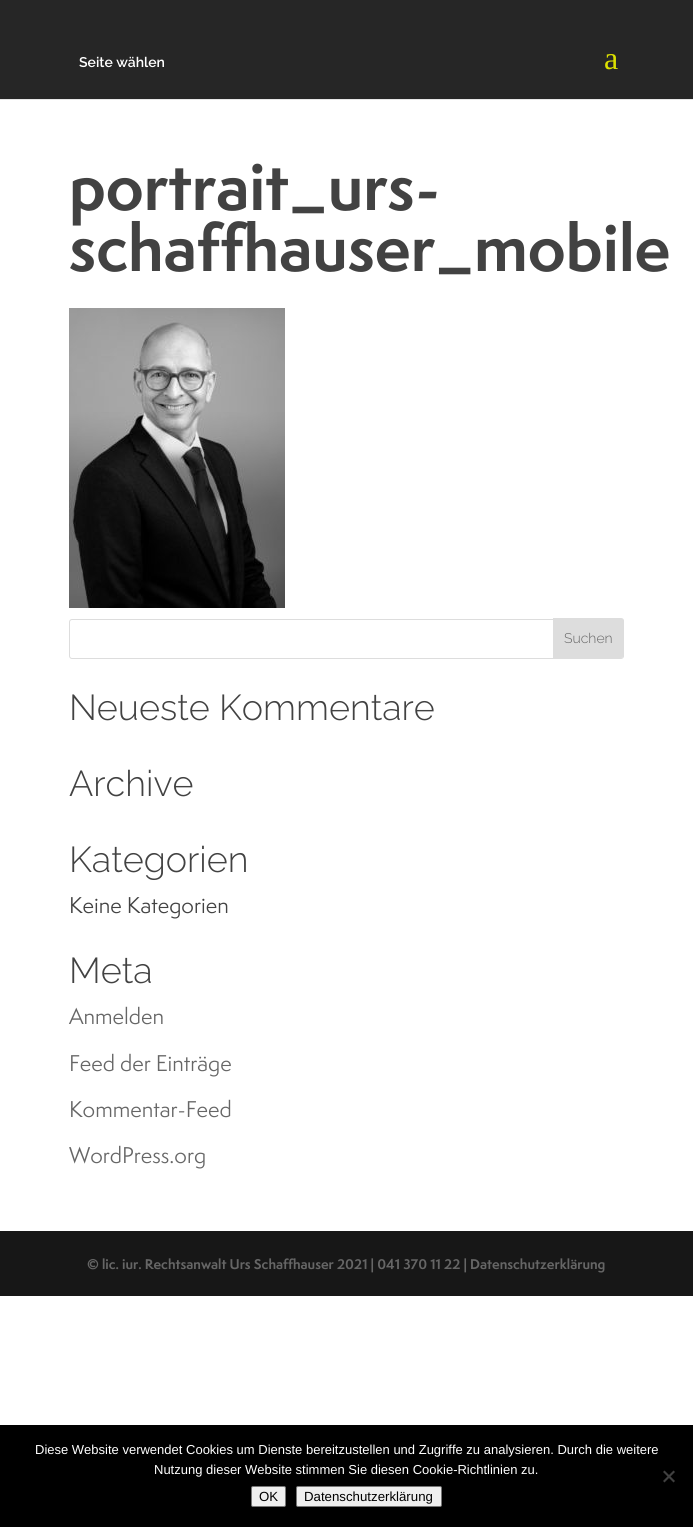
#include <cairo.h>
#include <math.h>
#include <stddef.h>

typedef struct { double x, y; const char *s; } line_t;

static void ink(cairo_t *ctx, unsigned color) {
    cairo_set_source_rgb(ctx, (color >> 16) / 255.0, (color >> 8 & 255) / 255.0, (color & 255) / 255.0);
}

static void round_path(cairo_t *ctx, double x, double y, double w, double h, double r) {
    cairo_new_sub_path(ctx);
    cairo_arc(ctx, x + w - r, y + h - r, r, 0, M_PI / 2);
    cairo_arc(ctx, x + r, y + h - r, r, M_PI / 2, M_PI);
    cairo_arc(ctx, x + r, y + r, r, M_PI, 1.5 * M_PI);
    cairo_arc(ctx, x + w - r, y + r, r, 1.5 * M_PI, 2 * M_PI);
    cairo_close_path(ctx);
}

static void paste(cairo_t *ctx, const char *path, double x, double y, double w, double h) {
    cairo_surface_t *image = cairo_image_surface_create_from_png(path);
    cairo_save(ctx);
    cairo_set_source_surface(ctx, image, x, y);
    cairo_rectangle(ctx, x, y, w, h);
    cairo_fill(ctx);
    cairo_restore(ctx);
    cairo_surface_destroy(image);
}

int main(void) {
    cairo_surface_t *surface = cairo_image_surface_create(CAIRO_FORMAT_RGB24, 693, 1527);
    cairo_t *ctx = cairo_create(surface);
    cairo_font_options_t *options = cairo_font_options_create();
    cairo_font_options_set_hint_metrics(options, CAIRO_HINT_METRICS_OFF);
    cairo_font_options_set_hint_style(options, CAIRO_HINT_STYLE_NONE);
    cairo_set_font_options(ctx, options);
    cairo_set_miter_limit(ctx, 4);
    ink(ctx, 0xFFFFFF);
    cairo_paint(ctx);
    ink(ctx, 0xE6E6E6);
    cairo_rectangle(ctx, 0, 99, 693, 1);
    cairo_fill(ctx);
    ink(ctx, 0x262626);
    cairo_rectangle(ctx, 0, 0, 693, 99);
    cairo_fill(ctx);
    cairo_select_font_face(ctx, "Raleway SemiBold", CAIRO_FONT_SLANT_NORMAL, CAIRO_FONT_WEIGHT_NORMAL);
    cairo_set_font_size(ctx, 14);
    ink(ctx, 0xFFFFFF);
    cairo_move_to(ctx, 79, 67);
    cairo_show_text(ctx, "Seite wählen");
    cairo_select_font_face(ctx, "Liberation Serif", CAIRO_FONT_SLANT_NORMAL, CAIRO_FONT_WEIGHT_NORMAL);
    cairo_set_font_size(ctx, 32);
    ink(ctx, 0xDCE000);
    cairo_move_to(ctx, 604, 69);
    cairo_show_text(ctx, "a");
    cairo_select_font_face(ctx, "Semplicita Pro", CAIRO_FONT_SLANT_NORMAL, CAIRO_FONT_WEIGHT_BOLD);
    cairo_set_font_size(ctx, 61);
    ink(ctx, 0x424242);
    cairo_move_to(ctx, 69, 210);
    cairo_show_text(ctx, "portrait_urs-");
    cairo_move_to(ctx, 69, 271);
    cairo_show_text(ctx, "schaffhauser_mobile");
    paste(ctx, "media/1.png", 69, 308, 216, 300);
    round_path(ctx, 69.5, 619.5, 554, 39, 2.5);
    ink(ctx, 0xDDDDDD);
    cairo_set_line_width(ctx, 1);
    cairo_stroke(ctx);
    cairo_new_path(ctx);
    cairo_move_to(ctx, 553.5, 618.5);
    cairo_line_to(ctx, 621, 618.5);
    cairo_curve_to(ctx, 622.5, 618.5, 623.5, 619.5, 623.5, 621);
    cairo_line_to(ctx, 623.5, 655);
    cairo_curve_to(ctx, 623.5, 656.5, 622.5, 657.5, 621, 657.5);
    cairo_line_to(ctx, 553.5, 657.5);
    cairo_close_path(ctx);
    cairo_fill_preserve(ctx);
    cairo_stroke(ctx);
    cairo_select_font_face(ctx, "Raleway Light", CAIRO_FONT_SLANT_NORMAL, CAIRO_FONT_WEIGHT_NORMAL);
    cairo_set_font_size(ctx, 14);
    ink(ctx, 0x666666);
    cairo_move_to(ctx, 564, 643);
    cairo_show_text(ctx, "Suchen");
    cairo_set_font_size(ctx, 36);
    ink(ctx, 0x424242);
    {
        static const line_t items[] = {
            {69, 720, "Neueste Kommentare"},
            {69, 796, "Archive"},
            {69, 872, "Kategorien"},
        };
        for (size_t i = 0; i < sizeof items / sizeof *items; i++) {
            cairo_move_to(ctx, items[i].x, items[i].y);
            cairo_show_text(ctx, items[i].s);
        }
    }
    cairo_select_font_face(ctx, "Semplicita Pro", CAIRO_FONT_SLANT_NORMAL, CAIRO_FONT_WEIGHT_NORMAL);
    cairo_set_font_size(ctx, 21);
    cairo_move_to(ctx, 69, 913);
    cairo_show_text(ctx, "Keine Kategorien");
    cairo_select_font_face(ctx, "Raleway Light", CAIRO_FONT_SLANT_NORMAL, CAIRO_FONT_WEIGHT_NORMAL);
    cairo_set_font_size(ctx, 36);
    cairo_move_to(ctx, 69, 983);
    cairo_show_text(ctx, "Meta");
    cairo_select_font_face(ctx, "Semplicita Pro", CAIRO_FONT_SLANT_NORMAL, CAIRO_FONT_WEIGHT_NORMAL);
    cairo_set_font_size(ctx, 21);
    ink(ctx, 0x666666);
    {
        static const line_t items[] = {
            {69, 1024, "Anmelden"},
            {69, 1071, "Feed der Einträge"},
            {69, 1117, "Kommentar-Feed"},
            {69, 1163, "WordPress.org"},
        };
        for (size_t i = 0; i < sizeof items / sizeof *items; i++) {
            cairo_move_to(ctx, items[i].x, items[i].y);
            cairo_show_text(ctx, items[i].s);
        }
    }
    ink(ctx, 0x171717);
    cairo_rectangle(ctx, 0, 1231, 693, 65);
    cairo_fill(ctx);
    cairo_select_font_face(ctx, "Semplicita Pro", CAIRO_FONT_SLANT_NORMAL, CAIRO_FONT_WEIGHT_BOLD);
    cairo_set_font_size(ctx, 13);
    ink(ctx, 0x666666);
    cairo_move_to(ctx, 87, 1269);
    cairo_show_text(ctx, "© lic. iur. Rechtsanwalt Urs Schaffhauser 2021 | 041 370 11 22 | Datenschutzerklärung");
    ink(ctx, 0x000000);
    cairo_rectangle(ctx, 0, 1425, 693, 102);
    cairo_fill(ctx);
    cairo_select_font_face(ctx, "Liberation Sans", CAIRO_FONT_SLANT_NORMAL, CAIRO_FONT_WEIGHT_NORMAL);
    ink(ctx, 0xFFFFFF);
    cairo_move_to(ctx, 35, 1454);
    cairo_show_text(ctx, "Diese Website verwendet Cookies um Dienste bereitzustellen und Zugriffe zu analysieren. Durch die weitere");
    cairo_move_to(ctx, 154, 1474);
    cairo_show_text(ctx, "Nutzung dieser Website stimmen Sie diesen Cookie-Richtlinien zu.");
    ink(ctx, 0x404040);
    cairo_new_path(ctx);
    cairo_move_to(ctx, 673.5, 1470.5);
    cairo_line_to(ctx, 675, 1472);
    cairo_line_to(ctx, 664.5, 1482.5);
    cairo_line_to(ctx, 663, 1481);
    cairo_close_path(ctx);
    cairo_fill(ctx);
    cairo_new_path(ctx);
    cairo_move_to(ctx, 663, 1472);
    cairo_line_to(ctx, 664.5, 1470.5);
    cairo_line_to(ctx, 675, 1481);
    cairo_line_to(ctx, 673.5, 1482.5);
    cairo_close_path(ctx);
    cairo_fill(ctx);
    ink(ctx, 0xEFEFEF);
    round_path(ctx, 251.5, 1486.5, 34, 20, 1.5);
    cairo_fill_preserve(ctx);
    ink(ctx, 0x767676);
    cairo_stroke(ctx);
    cairo_set_font_size(ctx, 13.25);
    ink(ctx, 0x000000);
    cairo_move_to(ctx, 259, 1501);
    cairo_show_text(ctx, "OK");
    ink(ctx, 0xEFEFEF);
    round_path(ctx, 296.5, 1486.5, 145, 20, 1.5);
    cairo_fill_preserve(ctx);
    ink(ctx, 0x767676);
    cairo_stroke(ctx);
    ink(ctx, 0x000000);
    cairo_move_to(ctx, 304, 1501);
    cairo_show_text(ctx, "Datenschutzerklärung");
    cairo_surface_write_to_png(surface, "image.png");
    cairo_font_options_destroy(options);
    cairo_destroy(ctx);
    cairo_surface_destroy(surface);
    return 0;
}
